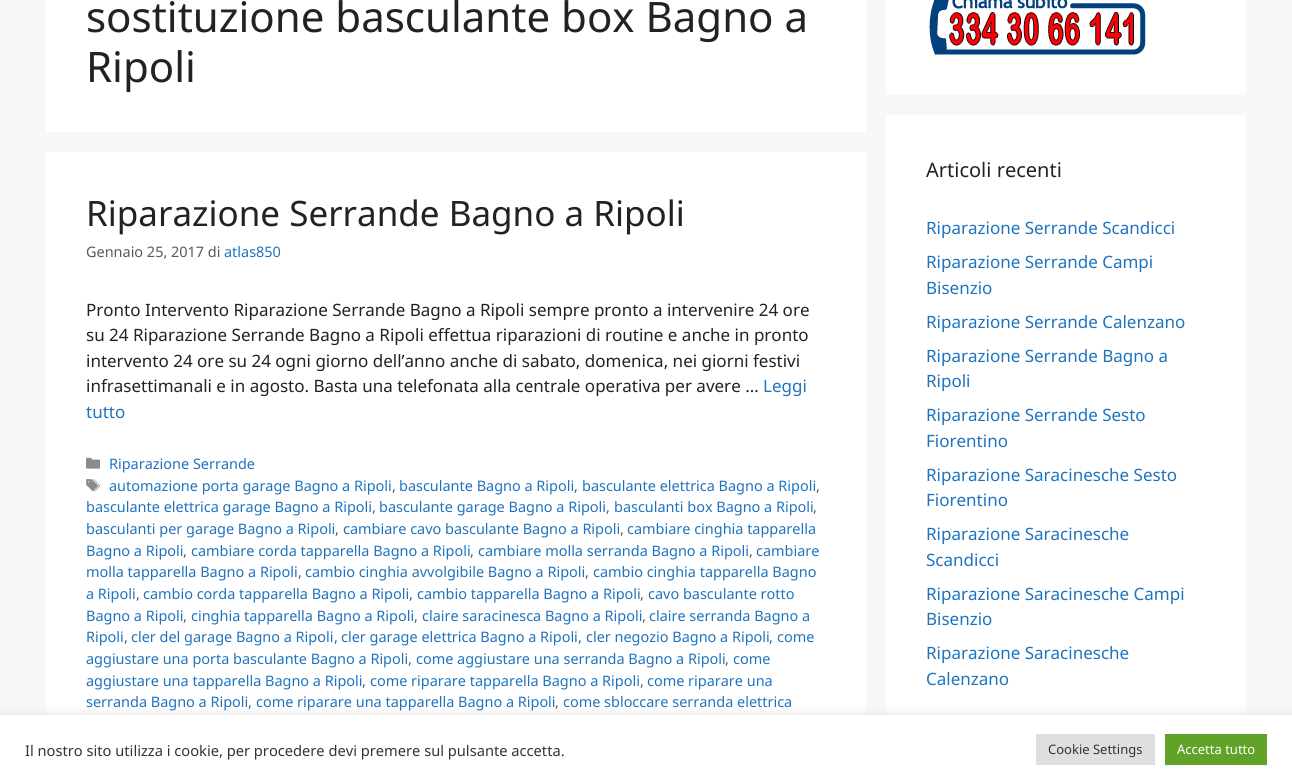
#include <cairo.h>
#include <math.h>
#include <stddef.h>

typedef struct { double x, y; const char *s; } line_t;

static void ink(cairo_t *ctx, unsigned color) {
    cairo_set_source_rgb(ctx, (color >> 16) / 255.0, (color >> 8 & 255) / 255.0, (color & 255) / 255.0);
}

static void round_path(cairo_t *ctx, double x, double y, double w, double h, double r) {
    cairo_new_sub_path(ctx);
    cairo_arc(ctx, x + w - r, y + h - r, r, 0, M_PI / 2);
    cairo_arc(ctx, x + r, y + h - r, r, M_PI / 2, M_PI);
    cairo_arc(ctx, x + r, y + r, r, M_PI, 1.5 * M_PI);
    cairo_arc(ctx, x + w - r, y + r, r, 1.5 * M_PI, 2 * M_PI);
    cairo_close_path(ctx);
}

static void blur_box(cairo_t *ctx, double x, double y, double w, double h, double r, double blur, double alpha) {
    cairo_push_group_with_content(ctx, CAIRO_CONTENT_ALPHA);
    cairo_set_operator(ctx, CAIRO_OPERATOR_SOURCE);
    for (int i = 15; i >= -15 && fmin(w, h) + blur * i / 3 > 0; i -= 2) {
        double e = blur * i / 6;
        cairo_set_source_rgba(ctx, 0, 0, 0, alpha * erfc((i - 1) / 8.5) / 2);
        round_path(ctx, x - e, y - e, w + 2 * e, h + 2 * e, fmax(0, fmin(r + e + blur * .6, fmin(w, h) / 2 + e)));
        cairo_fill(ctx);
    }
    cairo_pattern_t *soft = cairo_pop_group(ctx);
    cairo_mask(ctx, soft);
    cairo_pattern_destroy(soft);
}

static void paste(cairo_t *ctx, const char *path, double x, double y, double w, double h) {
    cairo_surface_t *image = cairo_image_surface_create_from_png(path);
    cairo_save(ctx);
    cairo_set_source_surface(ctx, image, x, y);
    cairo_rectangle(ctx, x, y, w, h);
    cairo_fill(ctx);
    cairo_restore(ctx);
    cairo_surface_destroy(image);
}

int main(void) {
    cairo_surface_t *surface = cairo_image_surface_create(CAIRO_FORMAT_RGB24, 1292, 784);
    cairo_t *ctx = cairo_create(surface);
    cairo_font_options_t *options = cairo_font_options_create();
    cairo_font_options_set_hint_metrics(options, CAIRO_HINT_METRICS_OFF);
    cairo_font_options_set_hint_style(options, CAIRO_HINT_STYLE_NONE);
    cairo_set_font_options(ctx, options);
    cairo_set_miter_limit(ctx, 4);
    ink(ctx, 0xF7F8F9);
    cairo_paint(ctx);
    ink(ctx, 0xFFFFFF);
    cairo_rectangle(ctx, 46, 0, 820, 132);
    cairo_fill(ctx);
    cairo_select_font_face(ctx, "Noto Sans", CAIRO_FONT_SLANT_NORMAL, CAIRO_FONT_WEIGHT_NORMAL);
    cairo_set_font_size(ctx, 42);
    ink(ctx, 0x222222);
    cairo_move_to(ctx, 86, 32);
    cairo_show_text(ctx, "sostituzione basculante box Bagno a");
    cairo_move_to(ctx, 86, 82);
    cairo_show_text(ctx, "Ripoli");
    ink(ctx, 0xFFFFFF);
    cairo_rectangle(ctx, 46, 152, 820, 563);
    cairo_fill(ctx);
    cairo_set_font_size(ctx, 35);
    ink(ctx, 0x222222);
    cairo_move_to(ctx, 86, 226);
    cairo_show_text(ctx, "Riparazione Serrande Bagno a Ripoli");
    cairo_set_font_size(ctx, 14.45);
    ink(ctx, 0x595959);
    cairo_move_to(ctx, 86, 257);
    cairo_show_text(ctx, "Gennaio 25, 2017 di");
    ink(ctx, 0x1E73BE);
    cairo_move_to(ctx, 224, 257);
    cairo_show_text(ctx, "atlas850");
    cairo_set_font_size(ctx, 17);
    ink(ctx, 0x222222);
    {
        static const line_t items[] = {
            {86, 316, "Pronto Intervento Riparazione Serrande Bagno a Ripoli sempre pronto a intervenire 24 ore"},
            {86, 341, "su 24 Riparazione Serrande Bagno a Ripoli effettua riparazioni di routine e anche in pronto"},
            {86, 367, "intervento 24 ore su 24 ogni giorno dell’anno anche di sabato, domenica, nei giorni festivi"},
            {86, 392, "infrasettimanali e in agosto. Basta una telefonata alla centrale operativa per avere …"},
        };
        for (size_t i = 0; i < sizeof items / sizeof *items; i++) {
            cairo_move_to(ctx, items[i].x, items[i].y);
            cairo_show_text(ctx, items[i].s);
        }
    }
    ink(ctx, 0x1E73BE);
    cairo_move_to(ctx, 763, 392);
    cairo_show_text(ctx, "Leggi");
    cairo_move_to(ctx, 86, 418);
    cairo_show_text(ctx, "tutto");
    paste(ctx, "media/1.png", 86, 457, 14, 12);
    cairo_set_font_size(ctx, 14.45);
    cairo_move_to(ctx, 109, 469);
    cairo_show_text(ctx, "Riparazione Serrande");
    paste(ctx, "media/2.png", 86, 479, 14, 13);
    cairo_move_to(ctx, 109, 491);
    cairo_show_text(ctx, "automazione porta garage Bagno a Ripoli");
    ink(ctx, 0x595959);
    cairo_move_to(ctx, 392, 491);
    cairo_show_text(ctx, ",");
    ink(ctx, 0x1E73BE);
    cairo_move_to(ctx, 399, 491);
    cairo_show_text(ctx, "basculante Bagno a Ripoli");
    ink(ctx, 0x595959);
    cairo_move_to(ctx, 574, 491);
    cairo_show_text(ctx, ",");
    ink(ctx, 0x1E73BE);
    cairo_move_to(ctx, 582, 491);
    cairo_show_text(ctx, "basculante elettrica Bagno a Ripoli");
    ink(ctx, 0x595959);
    cairo_move_to(ctx, 816, 491);
    cairo_show_text(ctx, ",");
    ink(ctx, 0x1E73BE);
    cairo_move_to(ctx, 86, 512);
    cairo_show_text(ctx, "basculante elettrica garage Bagno a Ripoli");
    ink(ctx, 0x595959);
    cairo_move_to(ctx, 372, 512);
    cairo_show_text(ctx, ",");
    ink(ctx, 0x1E73BE);
    cairo_move_to(ctx, 379, 512);
    cairo_show_text(ctx, "basculante garage Bagno a Ripoli");
    ink(ctx, 0x595959);
    cairo_move_to(ctx, 606, 512);
    cairo_show_text(ctx, ",");
    ink(ctx, 0x1E73BE);
    cairo_move_to(ctx, 614, 512);
    cairo_show_text(ctx, "basculanti box Bagno a Ripoli");
    ink(ctx, 0x595959);
    cairo_move_to(ctx, 813, 512);
    cairo_show_text(ctx, ",");
    ink(ctx, 0x1E73BE);
    cairo_move_to(ctx, 86, 534);
    cairo_show_text(ctx, "basculanti per garage Bagno a Ripoli");
    ink(ctx, 0x595959);
    cairo_move_to(ctx, 335, 534);
    cairo_show_text(ctx, ",");
    ink(ctx, 0x1E73BE);
    cairo_move_to(ctx, 343, 534);
    cairo_show_text(ctx, "cambiare cavo basculante Bagno a Ripoli");
    ink(ctx, 0x595959);
    cairo_move_to(ctx, 620, 534);
    cairo_show_text(ctx, ",");
    ink(ctx, 0x1E73BE);
    cairo_move_to(ctx, 627, 534);
    cairo_show_text(ctx, "cambiare cinghia tapparella");
    cairo_move_to(ctx, 86, 556);
    cairo_show_text(ctx, "Bagno a Ripoli");
    ink(ctx, 0x595959);
    cairo_move_to(ctx, 183, 556);
    cairo_show_text(ctx, ",");
    ink(ctx, 0x1E73BE);
    cairo_move_to(ctx, 191, 556);
    cairo_show_text(ctx, "cambiare corda tapparella Bagno a Ripoli");
    ink(ctx, 0x595959);
    cairo_move_to(ctx, 470, 556);
    cairo_show_text(ctx, ",");
    ink(ctx, 0x1E73BE);
    cairo_move_to(ctx, 478, 556);
    cairo_show_text(ctx, "cambiare molla serranda Bagno a Ripoli");
    ink(ctx, 0x595959);
    cairo_move_to(ctx, 749, 556);
    cairo_show_text(ctx, ",");
    ink(ctx, 0x1E73BE);
    cairo_move_to(ctx, 756, 556);
    cairo_show_text(ctx, "cambiare");
    cairo_move_to(ctx, 86, 577);
    cairo_show_text(ctx, "molla tapparella Bagno a Ripoli");
    ink(ctx, 0x595959);
    cairo_move_to(ctx, 298, 577);
    cairo_show_text(ctx, ",");
    ink(ctx, 0x1E73BE);
    cairo_move_to(ctx, 305, 577);
    cairo_show_text(ctx, "cambio cinghia avvolgibile Bagno a Ripoli");
    ink(ctx, 0x595959);
    cairo_move_to(ctx, 585, 577);
    cairo_show_text(ctx, ",");
    ink(ctx, 0x1E73BE);
    cairo_move_to(ctx, 593, 577);
    cairo_show_text(ctx, "cambio cinghia tapparella Bagno");
    cairo_move_to(ctx, 86, 599);
    cairo_show_text(ctx, "a Ripoli");
    ink(ctx, 0x595959);
    cairo_move_to(ctx, 136, 599);
    cairo_show_text(ctx, ",");
    ink(ctx, 0x1E73BE);
    cairo_move_to(ctx, 143, 599);
    cairo_show_text(ctx, "cambio corda tapparella Bagno a Ripoli");
    ink(ctx, 0x595959);
    cairo_move_to(ctx, 409, 599);
    cairo_show_text(ctx, ",");
    ink(ctx, 0x1E73BE);
    cairo_move_to(ctx, 417, 599);
    cairo_show_text(ctx, "cambio tapparella Bagno a Ripoli");
    ink(ctx, 0x595959);
    cairo_move_to(ctx, 640, 599);
    cairo_show_text(ctx, ",");
    ink(ctx, 0x1E73BE);
    cairo_move_to(ctx, 648, 599);
    cairo_show_text(ctx, "cavo basculante rotto");
    cairo_move_to(ctx, 86, 621);
    cairo_show_text(ctx, "Bagno a Ripoli");
    ink(ctx, 0x595959);
    cairo_move_to(ctx, 183, 621);
    cairo_show_text(ctx, ",");
    ink(ctx, 0x1E73BE);
    cairo_move_to(ctx, 191, 621);
    cairo_show_text(ctx, "cinghia tapparella Bagno a Ripoli");
    ink(ctx, 0x595959);
    cairo_move_to(ctx, 414, 621);
    cairo_show_text(ctx, ",");
    ink(ctx, 0x1E73BE);
    cairo_move_to(ctx, 422, 621);
    cairo_show_text(ctx, "claire saracinesca Bagno a Ripoli");
    ink(ctx, 0x595959);
    cairo_move_to(ctx, 642, 621);
    cairo_show_text(ctx, ",");
    ink(ctx, 0x1E73BE);
    cairo_move_to(ctx, 649, 621);
    cairo_show_text(ctx, "claire serranda Bagno a");
    cairo_move_to(ctx, 86, 642);
    cairo_show_text(ctx, "Ripoli");
    ink(ctx, 0x595959);
    cairo_move_to(ctx, 124, 642);
    cairo_show_text(ctx, ",");
    ink(ctx, 0x1E73BE);
    cairo_move_to(ctx, 131, 642);
    cairo_show_text(ctx, "cler del garage Bagno a Ripoli");
    ink(ctx, 0x595959);
    cairo_move_to(ctx, 334, 642);
    cairo_show_text(ctx, ",");
    ink(ctx, 0x1E73BE);
    cairo_move_to(ctx, 341, 642);
    cairo_show_text(ctx, "cler garage elettrica Bagno a Ripoli");
    ink(ctx, 0x595959);
    cairo_move_to(ctx, 578, 642);
    cairo_show_text(ctx, ",");
    ink(ctx, 0x1E73BE);
    cairo_move_to(ctx, 586, 642);
    cairo_show_text(ctx, "cler negozio Bagno a Ripoli");
    ink(ctx, 0x595959);
    cairo_move_to(ctx, 769, 642);
    cairo_show_text(ctx, ",");
    ink(ctx, 0x1E73BE);
    cairo_move_to(ctx, 777, 642);
    cairo_show_text(ctx, "come");
    cairo_move_to(ctx, 86, 664);
    cairo_show_text(ctx, "aggiustare una porta basculante Bagno a Ripoli");
    ink(ctx, 0x595959);
    cairo_move_to(ctx, 408, 664);
    cairo_show_text(ctx, ",");
    ink(ctx, 0x1E73BE);
    cairo_move_to(ctx, 416, 664);
    cairo_show_text(ctx, "come aggiustare una serranda Bagno a Ripoli");
    ink(ctx, 0x595959);
    cairo_move_to(ctx, 725, 664);
    cairo_show_text(ctx, ",");
    ink(ctx, 0x1E73BE);
    cairo_move_to(ctx, 733, 664);
    cairo_show_text(ctx, "come");
    cairo_move_to(ctx, 86, 686);
    cairo_show_text(ctx, "aggiustare una tapparella Bagno a Ripoli");
    ink(ctx, 0x595959);
    cairo_move_to(ctx, 362, 686);
    cairo_show_text(ctx, ",");
    ink(ctx, 0x1E73BE);
    cairo_move_to(ctx, 370, 686);
    cairo_show_text(ctx, "come riparare tapparella Bagno a Ripoli");
    ink(ctx, 0x595959);
    cairo_move_to(ctx, 640, 686);
    cairo_show_text(ctx, ",");
    ink(ctx, 0x1E73BE);
    cairo_move_to(ctx, 647, 686);
    cairo_show_text(ctx, "come riparare una");
    cairo_move_to(ctx, 86, 707);
    cairo_show_text(ctx, "serranda Bagno a Ripoli");
    ink(ctx, 0x595959);
    cairo_move_to(ctx, 248, 707);
    cairo_show_text(ctx, ",");
    ink(ctx, 0x1E73BE);
    cairo_move_to(ctx, 256, 707);
    cairo_show_text(ctx, "come riparare una tapparella Bagno a Ripoli");
    ink(ctx, 0x595959);
    cairo_move_to(ctx, 555, 707);
    cairo_show_text(ctx, ",");
    ink(ctx, 0x1E73BE);
    cairo_move_to(ctx, 563, 707);
    cairo_show_text(ctx, "come sbloccare serranda elettrica");
    ink(ctx, 0xFFFFFF);
    cairo_rectangle(ctx, 886, 0, 360, 95);
    cairo_fill(ctx);
    paste(ctx, "media/3.png", 929, 0, 217, 55);
    cairo_rectangle(ctx, 886, 115, 360, 600);
    cairo_fill(ctx);
    cairo_set_font_size(ctx, 20);
    ink(ctx, 0x222222);
    cairo_move_to(ctx, 926, 177);
    cairo_show_text(ctx, "Articoli recenti");
    cairo_set_font_size(ctx, 17);
    ink(ctx, 0x1E73BE);
    {
        static const line_t items[] = {
            {926, 234, "Riparazione Serrande Scandicci"},
            {926, 268, "Riparazione Serrande Campi"},
            {926, 294, "Bisenzio"},
            {926, 328, "Riparazione Serrande Calenzano"},
            {926, 362, "Riparazione Serrande Bagno a"},
            {926, 387, "Ripoli"},
            {926, 421, "Riparazione Serrande Sesto"},
            {926, 447, "Fiorentino"},
            {926, 481, "Riparazione Saracinesche Sesto"},
            {926, 506, "Fiorentino"},
            {926, 540, "Riparazione Saracinesche"},
            {926, 566, "Scandicci"},
            {926, 600, "Riparazione Saracinesche Campi"},
            {926, 625, "Bisenzio"},
            {926, 659, "Riparazione Saracinesche"},
            {926, 685, "Calenzano"},
        };
        for (size_t i = 0; i < sizeof items / sizeof *items; i++) {
            cairo_move_to(ctx, items[i].x, items[i].y);
            cairo_show_text(ctx, items[i].s);
        }
    }
    ink(ctx, 0xACABAB);
    blur_box(ctx, 0, 714, 1292, 69, 0, 5, 0.3);
    ink(ctx, 0xFFFFFF);
    cairo_rectangle(ctx, 0, 715, 1292, 69);
    cairo_fill(ctx);
    cairo_set_font_size(ctx, 14.65);
    ink(ctx, 0x333333);
    cairo_move_to(ctx, 25, 756);
    cairo_show_text(ctx, "Il nostro sito utilizza i cookie, per procedere devi premere sul pulsante accetta.");
    ink(ctx, 0xDEDFE0);
    cairo_rectangle(ctx, 1036, 734, 119, 31);
    cairo_fill(ctx);
    cairo_set_font_size(ctx, 13);
    ink(ctx, 0x333333);
    cairo_move_to(ctx, 1048, 754);
    cairo_show_text(ctx, "Cookie Settings");
    ink(ctx, 0x61A229);
    cairo_rectangle(ctx, 1165, 734, 102, 31);
    cairo_fill(ctx);
    ink(ctx, 0xFFFFFF);
    cairo_move_to(ctx, 1177, 754);
    cairo_show_text(ctx, "Accetta tutto");
    cairo_surface_write_to_png(surface, "image.png");
    cairo_font_options_destroy(options);
    cairo_destroy(ctx);
    cairo_surface_destroy(surface);
    return 0;
}
